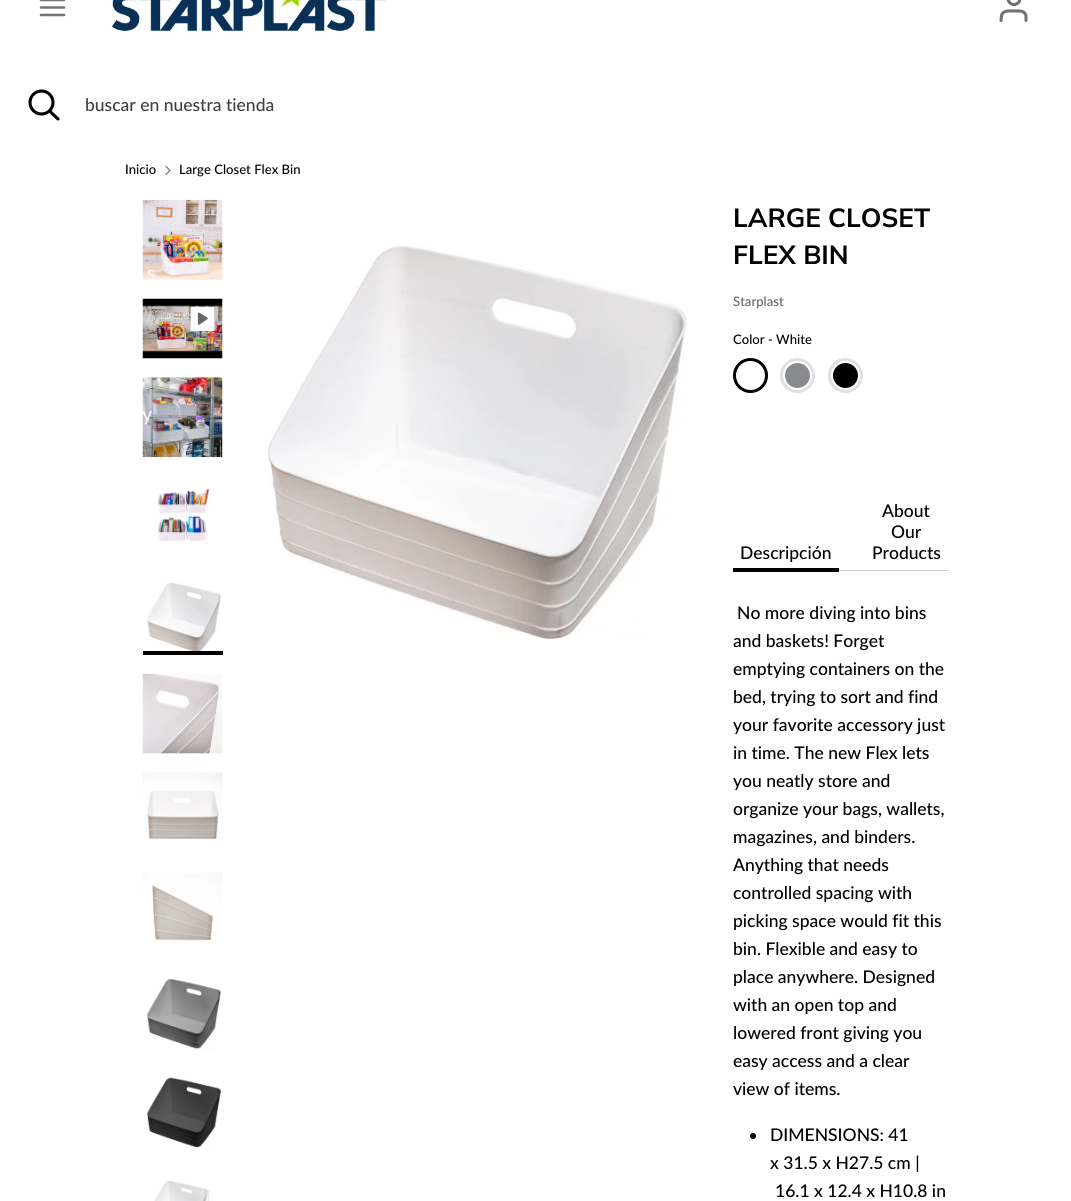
#include <cairo.h>
#include <math.h>
#include <stddef.h>

typedef struct { double x, y; const char *s; } line_t;

static void ink(cairo_t *ctx, unsigned color) {
    cairo_set_source_rgb(ctx, (color >> 16) / 255.0, (color >> 8 & 255) / 255.0, (color & 255) / 255.0);
}

static void paste(cairo_t *ctx, const char *path, double x, double y, double w, double h) {
    cairo_surface_t *image = cairo_image_surface_create_from_png(path);
    cairo_save(ctx);
    cairo_set_source_surface(ctx, image, x, y);
    cairo_rectangle(ctx, x, y, w, h);
    cairo_fill(ctx);
    cairo_restore(ctx);
    cairo_surface_destroy(image);
}

int main(void) {
    cairo_surface_t *surface = cairo_image_surface_create(CAIRO_FORMAT_RGB24, 1071, 1201);
    cairo_t *ctx = cairo_create(surface);
    cairo_font_options_t *options = cairo_font_options_create();
    cairo_font_options_set_hint_metrics(options, CAIRO_HINT_METRICS_OFF);
    cairo_font_options_set_hint_style(options, CAIRO_HINT_STYLE_NONE);
    cairo_set_font_options(ctx, options);
    cairo_set_miter_limit(ctx, 4);
    ink(ctx, 0xFFFFFF);
    cairo_paint(ctx);
    cairo_new_path(ctx);
    cairo_move_to(ctx, 41, 7.5);
    cairo_line_to(ctx, 64, 7.5);
    cairo_move_to(ctx, 41, 0);
    cairo_line_to(ctx, 64, 0);
    cairo_move_to(ctx, 41, 15);
    cairo_line_to(ctx, 64, 15);
    ink(ctx, 0x717373);
    cairo_set_line_width(ctx, 2.5);
    cairo_set_line_cap(ctx, CAIRO_LINE_CAP_ROUND);
    cairo_stroke(ctx);
    paste(ctx, "media/1.png", 112, 0, 274, 31);
    cairo_new_path(ctx);
    cairo_move_to(ctx, 1026, 20.5);
    cairo_line_to(ctx, 1026, 16);
    cairo_curve_to(ctx, 1025, 10, 1018.5, 11, 1014, 11);
    cairo_curve_to(ctx, 1009, 11, 1002.5, 10, 1001.5, 16);
    cairo_line_to(ctx, 1001, 20.5);
    cairo_set_line_width(ctx, 3.1);
    cairo_stroke(ctx);
    cairo_arc(ctx, 1014, -1.5, 6, 0, 2 * M_PI);
    cairo_set_line_cap(ctx, CAIRO_LINE_CAP_BUTT);
    cairo_stroke(ctx);
    cairo_arc(ctx, 41.5, 102.5, 11.5, 0, 2 * M_PI);
    ink(ctx, 0x000000);
    cairo_stroke(ctx);
    cairo_new_path(ctx);
    cairo_move_to(ctx, 58, 119);
    cairo_line_to(ctx, 49.5, 111);
    cairo_set_line_cap(ctx, CAIRO_LINE_CAP_ROUND);
    cairo_stroke(ctx);
    cairo_select_font_face(ctx, "Lato Medium", CAIRO_FONT_SLANT_NORMAL, CAIRO_FONT_WEIGHT_NORMAL);
    cairo_set_font_size(ctx, 17.5);
    ink(ctx, 0x404040);
    cairo_move_to(ctx, 85, 111);
    cairo_show_text(ctx, "buscar en nuestra tienda");
    paste(ctx, "media/2.png", 142, 199, 81, 81);
    cairo_select_font_face(ctx, "Lato", CAIRO_FONT_SLANT_NORMAL, CAIRO_FONT_WEIGHT_NORMAL);
    cairo_set_font_size(ctx, 20);
    ink(ctx, 0xFEFCFB);
    cairo_move_to(ctx, 147, 280);
    cairo_show_text(ctx, "s");
    paste(ctx, "media/5.png", 142, 377, 81, 81);
    cairo_move_to(ctx, 142, 421);
    cairo_show_text(ctx, "y");
    cairo_select_font_face(ctx, "Lato Medium", CAIRO_FONT_SLANT_NORMAL, CAIRO_FONT_WEIGHT_NORMAL);
    cairo_set_font_size(ctx, 13.1);
    ink(ctx, 0x000000);
    cairo_move_to(ctx, 125, 174);
    cairo_show_text(ctx, "Inicio");
    cairo_new_path(ctx);
    cairo_move_to(ctx, 166, 174.5);
    cairo_line_to(ctx, 170, 170.5);
    cairo_line_to(ctx, 166, 166.5);
    ink(ctx, 0x808080);
    cairo_set_line_width(ctx, 1.3);
    cairo_stroke(ctx);
    ink(ctx, 0x000000);
    cairo_move_to(ctx, 179, 174);
    cairo_show_text(ctx, "Large Closet Flex Bin");
    paste(ctx, "media/3.png", 142, 298, 81, 61);
    paste(ctx, "media/4.png", 190, 306, 25, 25);
    paste(ctx, "media/6.png", 158, 488, 52, 53);
    paste(ctx, "media/7.png", 147, 582, 74, 69);
    cairo_rectangle(ctx, 143, 651, 80, 4);
    cairo_fill(ctx);
    paste(ctx, "media/8.png", 142, 673, 81, 81);
    paste(ctx, "media/9.png", 143, 772, 80, 68);
    paste(ctx, "media/10.png", 143, 872, 79, 69);
    paste(ctx, "media/11.png", 147, 979, 74, 72);
    paste(ctx, "media/12.png", 147, 1077, 74, 71);
    paste(ctx, "media/13.png", 154, 1181, 56, 20);
    paste(ctx, "media/14.png", 268, 245, 419, 394);
    cairo_select_font_face(ctx, "Muli", CAIRO_FONT_SLANT_NORMAL, CAIRO_FONT_WEIGHT_BOLD);
    cairo_set_font_size(ctx, 26.25);
    cairo_move_to(ctx, 733, 227);
    cairo_show_text(ctx, "LARGE CLOSET");
    cairo_move_to(ctx, 733, 264);
    cairo_show_text(ctx, "FLEX BIN");
    cairo_select_font_face(ctx, "Lato Medium", CAIRO_FONT_SLANT_NORMAL, CAIRO_FONT_WEIGHT_NORMAL);
    cairo_set_font_size(ctx, 13.1);
    ink(ctx, 0x666666);
    cairo_move_to(ctx, 733, 306);
    cairo_show_text(ctx, "Starplast");
    ink(ctx, 0x000000);
    cairo_move_to(ctx, 733, 344);
    cairo_show_text(ctx, "Color - White");
    cairo_new_path(ctx);
    cairo_arc(ctx, 750.5, 375.5, 16, 0, 2 * M_PI);
    cairo_set_line_width(ctx, 3);
    cairo_set_line_cap(ctx, CAIRO_LINE_CAP_BUTT);
    cairo_stroke(ctx);
    cairo_arc(ctx, 797.5, 375.5, 16, 0, 2 * M_PI);
    ink(ctx, 0xE0E0E0);
    cairo_stroke(ctx);
    ink(ctx, 0x898A8D);
    cairo_arc(ctx, 797.5, 375.5, 12.5, 0, 2 * M_PI);
    cairo_fill(ctx);
    cairo_arc(ctx, 845.5, 375.5, 16, 0, 2 * M_PI);
    ink(ctx, 0xE0E0E0);
    cairo_stroke(ctx);
    ink(ctx, 0x000000);
    cairo_arc(ctx, 845.5, 375.5, 12.5, 0, 2 * M_PI);
    cairo_fill(ctx);
    ink(ctx, 0xCCCCCC);
    cairo_rectangle(ctx, 839, 570, 109, 1);
    cairo_fill(ctx);
    cairo_set_font_size(ctx, 17.5);
    ink(ctx, 0x000000);
    cairo_move_to(ctx, 740, 559);
    cairo_show_text(ctx, "Descripción");
    cairo_rectangle(ctx, 733, 568, 106, 4);
    cairo_fill(ctx);
    {
        static const line_t items[] = {
            {882, 517, "About"},
            {891, 538, "Our"},
            {872, 559, "Products"},
            {737, 619, "No more diving into bins"},
            {733, 647, "and baskets! Forget"},
            {733, 675, "emptying containers on the"},
            {733, 703, "bed, trying to sort and find"},
            {733, 731, "your favorite accessory just"},
            {733, 759, "in time. The new Flex lets"},
            {733, 787, "you neatly store and"},
            {733, 815, "organize your bags, wallets,"},
            {733, 843, "magazines, and binders."},
            {733, 871, "Anything that needs"},
            {733, 899, "controlled spacing with"},
            {733, 927, "picking space would fit this"},
            {733, 955, "bin. Flexible and easy to"},
            {733, 983, "place anywhere. Designed"},
            {733, 1011, "with an open top and"},
            {733, 1039, "lowered front giving you"},
            {733, 1067, "easy access and a clear"},
            {733, 1095, "view of items."},
        };
        for (size_t i = 0; i < sizeof items / sizeof *items; i++) {
            cairo_move_to(ctx, items[i].x, items[i].y);
            cairo_show_text(ctx, items[i].s);
        }
    }
    cairo_new_path(ctx);
    cairo_arc(ctx, 753, 1136, 3, 0, 2 * M_PI);
    cairo_fill(ctx);
    {
        static const line_t items[] = {
            {770, 1141, "DIMENSIONS: 41"},
            {770, 1169, "x 31.5 x H27.5 cm |"},
            {775, 1197, "16.1 x 12.4 x H10.8 in"},
        };
        for (size_t i = 0; i < sizeof items / sizeof *items; i++) {
            cairo_move_to(ctx, items[i].x, items[i].y);
            cairo_show_text(ctx, items[i].s);
        }
    }
    cairo_surface_write_to_png(surface, "image.png");
    cairo_font_options_destroy(options);
    cairo_destroy(ctx);
    cairo_surface_destroy(surface);
    return 0;
}
